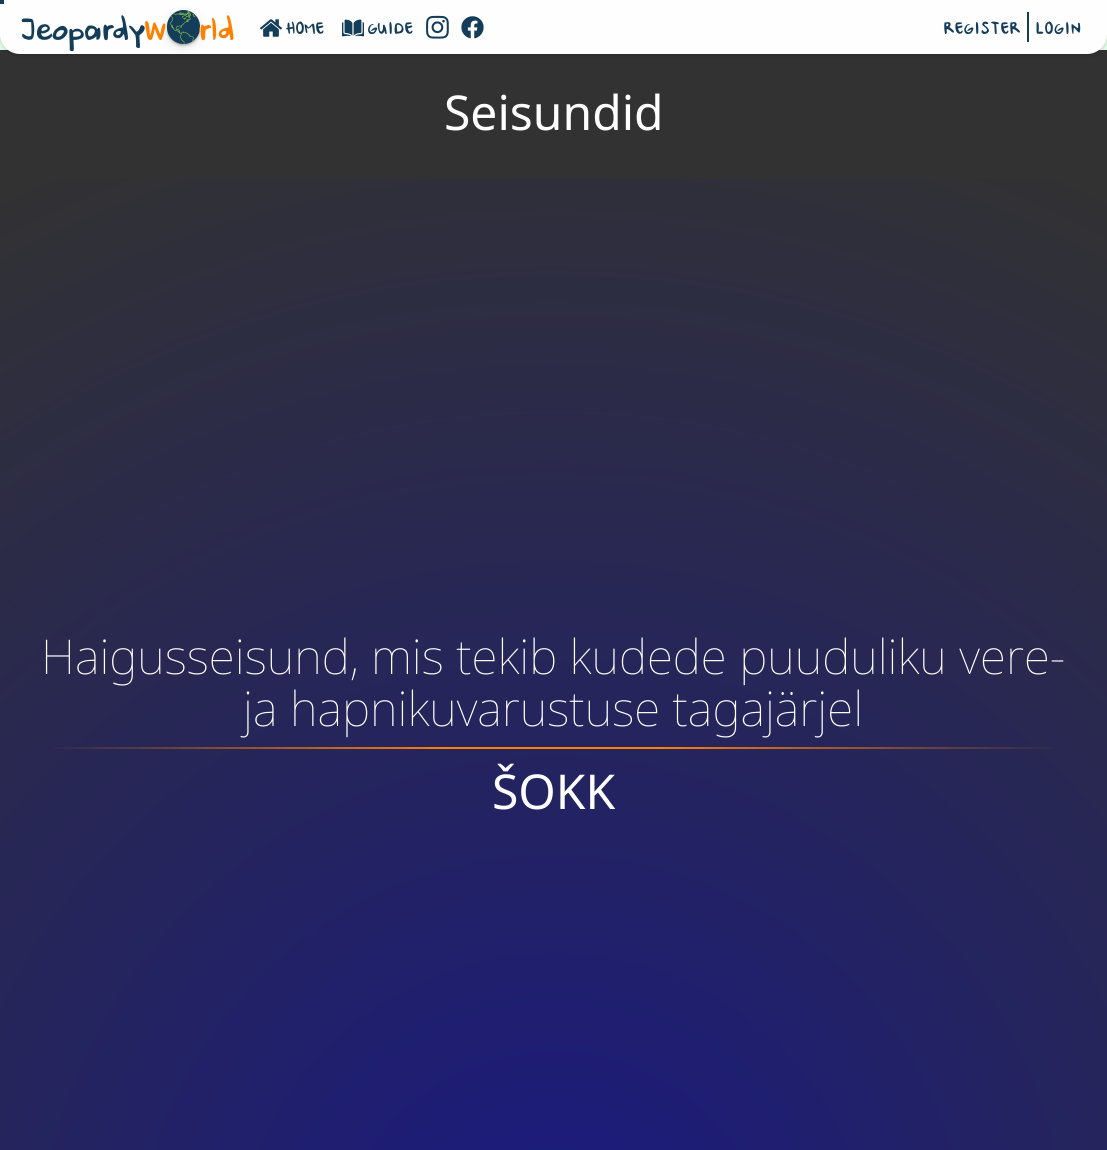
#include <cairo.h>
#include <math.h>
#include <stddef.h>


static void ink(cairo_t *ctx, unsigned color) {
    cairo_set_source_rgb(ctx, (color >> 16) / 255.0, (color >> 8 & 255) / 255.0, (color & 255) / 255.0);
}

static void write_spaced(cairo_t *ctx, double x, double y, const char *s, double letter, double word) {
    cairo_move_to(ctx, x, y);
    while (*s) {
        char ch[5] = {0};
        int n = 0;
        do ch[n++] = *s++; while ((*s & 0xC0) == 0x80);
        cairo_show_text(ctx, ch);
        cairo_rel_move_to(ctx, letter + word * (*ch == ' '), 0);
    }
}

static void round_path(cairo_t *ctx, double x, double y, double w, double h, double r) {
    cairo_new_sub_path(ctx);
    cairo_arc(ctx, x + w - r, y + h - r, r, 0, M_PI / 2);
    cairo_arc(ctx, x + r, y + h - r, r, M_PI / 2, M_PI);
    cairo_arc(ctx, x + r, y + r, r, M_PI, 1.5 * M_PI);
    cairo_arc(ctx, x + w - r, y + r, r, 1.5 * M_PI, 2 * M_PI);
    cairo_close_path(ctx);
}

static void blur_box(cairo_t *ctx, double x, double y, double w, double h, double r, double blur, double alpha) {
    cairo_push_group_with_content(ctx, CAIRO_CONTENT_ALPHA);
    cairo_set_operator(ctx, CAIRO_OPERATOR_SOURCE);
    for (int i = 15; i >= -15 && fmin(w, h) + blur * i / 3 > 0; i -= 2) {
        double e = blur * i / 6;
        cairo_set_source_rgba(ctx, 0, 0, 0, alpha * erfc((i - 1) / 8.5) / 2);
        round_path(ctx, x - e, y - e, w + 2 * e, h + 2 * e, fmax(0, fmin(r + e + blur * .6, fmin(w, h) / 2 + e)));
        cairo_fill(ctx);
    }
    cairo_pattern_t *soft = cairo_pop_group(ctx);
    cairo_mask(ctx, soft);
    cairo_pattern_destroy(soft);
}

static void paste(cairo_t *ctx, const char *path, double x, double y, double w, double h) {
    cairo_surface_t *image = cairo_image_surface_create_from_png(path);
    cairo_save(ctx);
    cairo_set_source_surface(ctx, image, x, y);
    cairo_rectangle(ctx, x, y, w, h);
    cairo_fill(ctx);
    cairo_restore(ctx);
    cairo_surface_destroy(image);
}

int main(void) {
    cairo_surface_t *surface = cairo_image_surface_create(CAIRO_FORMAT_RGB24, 1107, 1150);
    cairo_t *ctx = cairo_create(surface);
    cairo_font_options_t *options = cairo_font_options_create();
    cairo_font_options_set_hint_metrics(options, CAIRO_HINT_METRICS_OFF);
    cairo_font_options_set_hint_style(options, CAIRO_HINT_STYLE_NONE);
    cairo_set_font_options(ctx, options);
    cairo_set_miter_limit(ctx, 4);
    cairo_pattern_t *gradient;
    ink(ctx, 0xFFFFFF);
    cairo_paint(ctx);
    paste(ctx, "media/1.png", 0, 34, 1107, 16);
    gradient = cairo_pattern_create_radial(554, 1145, 0, 554, 1145, 1227);
    cairo_pattern_add_color_stop_rgba(gradient, 0, 0.102, 0.098, 0.506, 1);
    cairo_pattern_add_color_stop_rgba(gradient, 0.7, 0.196, 0.196, 0.196, 1);
    cairo_set_source(ctx, gradient);
    cairo_pattern_destroy(gradient);
    cairo_rectangle(ctx, 0, 50, 1107, 128);
    cairo_fill(ctx);
    ink(ctx, 0x000000);
    blur_box(ctx, 0, 1, 1107, 54, 20, 2.5, 0.2);
    ink(ctx, 0xFEFEFE);
    cairo_new_path(ctx);
    cairo_move_to(ctx, 0, 0);
    cairo_line_to(ctx, 1107, 0);
    cairo_line_to(ctx, 1107, 34);
    cairo_curve_to(ctx, 1107, 45, 1098, 54, 1087, 54);
    cairo_line_to(ctx, 20, 54);
    cairo_curve_to(ctx, 9, 54, 0, 45, 0, 34);
    cairo_close_path(ctx);
    cairo_fill(ctx);
    ink(ctx, 0x143D59);
    cairo_rectangle(ctx, 0, 0, 4, 4);
    cairo_fill(ctx);
    cairo_select_font_face(ctx, "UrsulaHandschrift", CAIRO_FONT_SLANT_NORMAL, CAIRO_FONT_WEIGHT_NORMAL);
    cairo_set_font_size(ctx, 32);
    cairo_move_to(ctx, 20, 40);
    cairo_show_text(ctx, "Jeopardy");
    ink(ctx, 0x101010);
    blur_box(ctx, 167, 14, 33, 33, 16.5, 5, 0.1);
    blur_box(ctx, 167, 13, 33, 33, 16.5, 1.5, 0.1);
    blur_box(ctx, 167, 13, 33, 33, 16.5, 1, 0.1);
    ink(ctx, 0x000000);
    blur_box(ctx, 167, 12, 33, 33, 16.5, 0.5, 0.1);
    ink(ctx, 0x143D59);
    round_path(ctx, 167, 10, 33, 34, 16.5);
    cairo_fill(ctx);
    paste(ctx, "media/2.png", 170, 11, 30, 33);
    ink(ctx, 0xFF8000);
    cairo_move_to(ctx, 199, 40);
    cairo_show_text(ctx, "rld");
    cairo_move_to(ctx, 145, 40);
    cairo_show_text(ctx, "W");
    paste(ctx, "media/3.png", 260, 19, 22, 18);
    cairo_set_font_size(ctx, 18);
    ink(ctx, 0x143D59);
    write_spaced(ctx, 286, 34, "HOME", 0.75, 0);
    paste(ctx, "media/4.png", 342, 19, 22, 18);
    write_spaced(ctx, 368, 34, "GUIDE", 0.75, 0);
    paste(ctx, "media/5.png", 426, 15, 23, 24);
    paste(ctx, "media/6.png", 461, 16, 23, 23);
    write_spaced(ctx, 944, 34, "REGISTER", 0.75, 0);
    cairo_rectangle(ctx, 1027, 12, 2, 30);
    cairo_fill(ctx);
    write_spaced(ctx, 1035, 34, "LOGIN", 0.75, 0);
    cairo_select_font_face(ctx, "Noto Sans", CAIRO_FONT_SLANT_NORMAL, CAIRO_FONT_WEIGHT_NORMAL);
    cairo_set_font_size(ctx, 48);
    ink(ctx, 0xFFFFFF);
    cairo_move_to(ctx, 444, 130);
    cairo_show_text(ctx, "Seisundid");
    gradient = cairo_pattern_create_radial(554, 1273, 0, 554, 1273, 1227);
    cairo_pattern_add_color_stop_rgba(gradient, 0, 0.102, 0.098, 0.506, 1);
    cairo_pattern_add_color_stop_rgba(gradient, 1, 0.196, 0.196, 0.196, 1);
    cairo_set_source(ctx, gradient);
    cairo_pattern_destroy(gradient);
    cairo_rectangle(ctx, 0, 178, 1107, 972);
    cairo_fill(ctx);
    cairo_select_font_face(ctx, "Noto Sans Thin", CAIRO_FONT_SLANT_NORMAL, CAIRO_FONT_WEIGHT_NORMAL);
    ink(ctx, 0xFFFFFF);
    cairo_move_to(ctx, 41, 674);
    cairo_show_text(ctx, "Haigusseisund, mis tekib kudede puuduliku vere-");
    cairo_move_to(ctx, 243, 726);
    cairo_show_text(ctx, "ja hapnikuvarustuse tagajärjel");
    gradient = cairo_pattern_create_linear(24, 748, 1083, 748);
    cairo_pattern_add_color_stop_rgba(gradient, 0.02, 1, 0.502, 0, 0);
    cairo_pattern_add_color_stop_rgba(gradient, 0.4, 1, 0.502, 0, 1);
    cairo_pattern_add_color_stop_rgba(gradient, 0.6, 1, 0.502, 0, 1);
    cairo_pattern_add_color_stop_rgba(gradient, 0.98, 1, 0.502, 0, 0);
    cairo_set_source(ctx, gradient);
    cairo_pattern_destroy(gradient);
    cairo_rectangle(ctx, 54, 747, 999, 2);
    cairo_fill(ctx);
    cairo_select_font_face(ctx, "Noto Sans", CAIRO_FONT_SLANT_NORMAL, CAIRO_FONT_WEIGHT_NORMAL);
    ink(ctx, 0xFFFFFF);
    cairo_move_to(ctx, 492, 809);
    cairo_show_text(ctx, "ŠOKK");
    cairo_surface_write_to_png(surface, "image.png");
    cairo_font_options_destroy(options);
    cairo_destroy(ctx);
    cairo_surface_destroy(surface);
    return 0;
}
